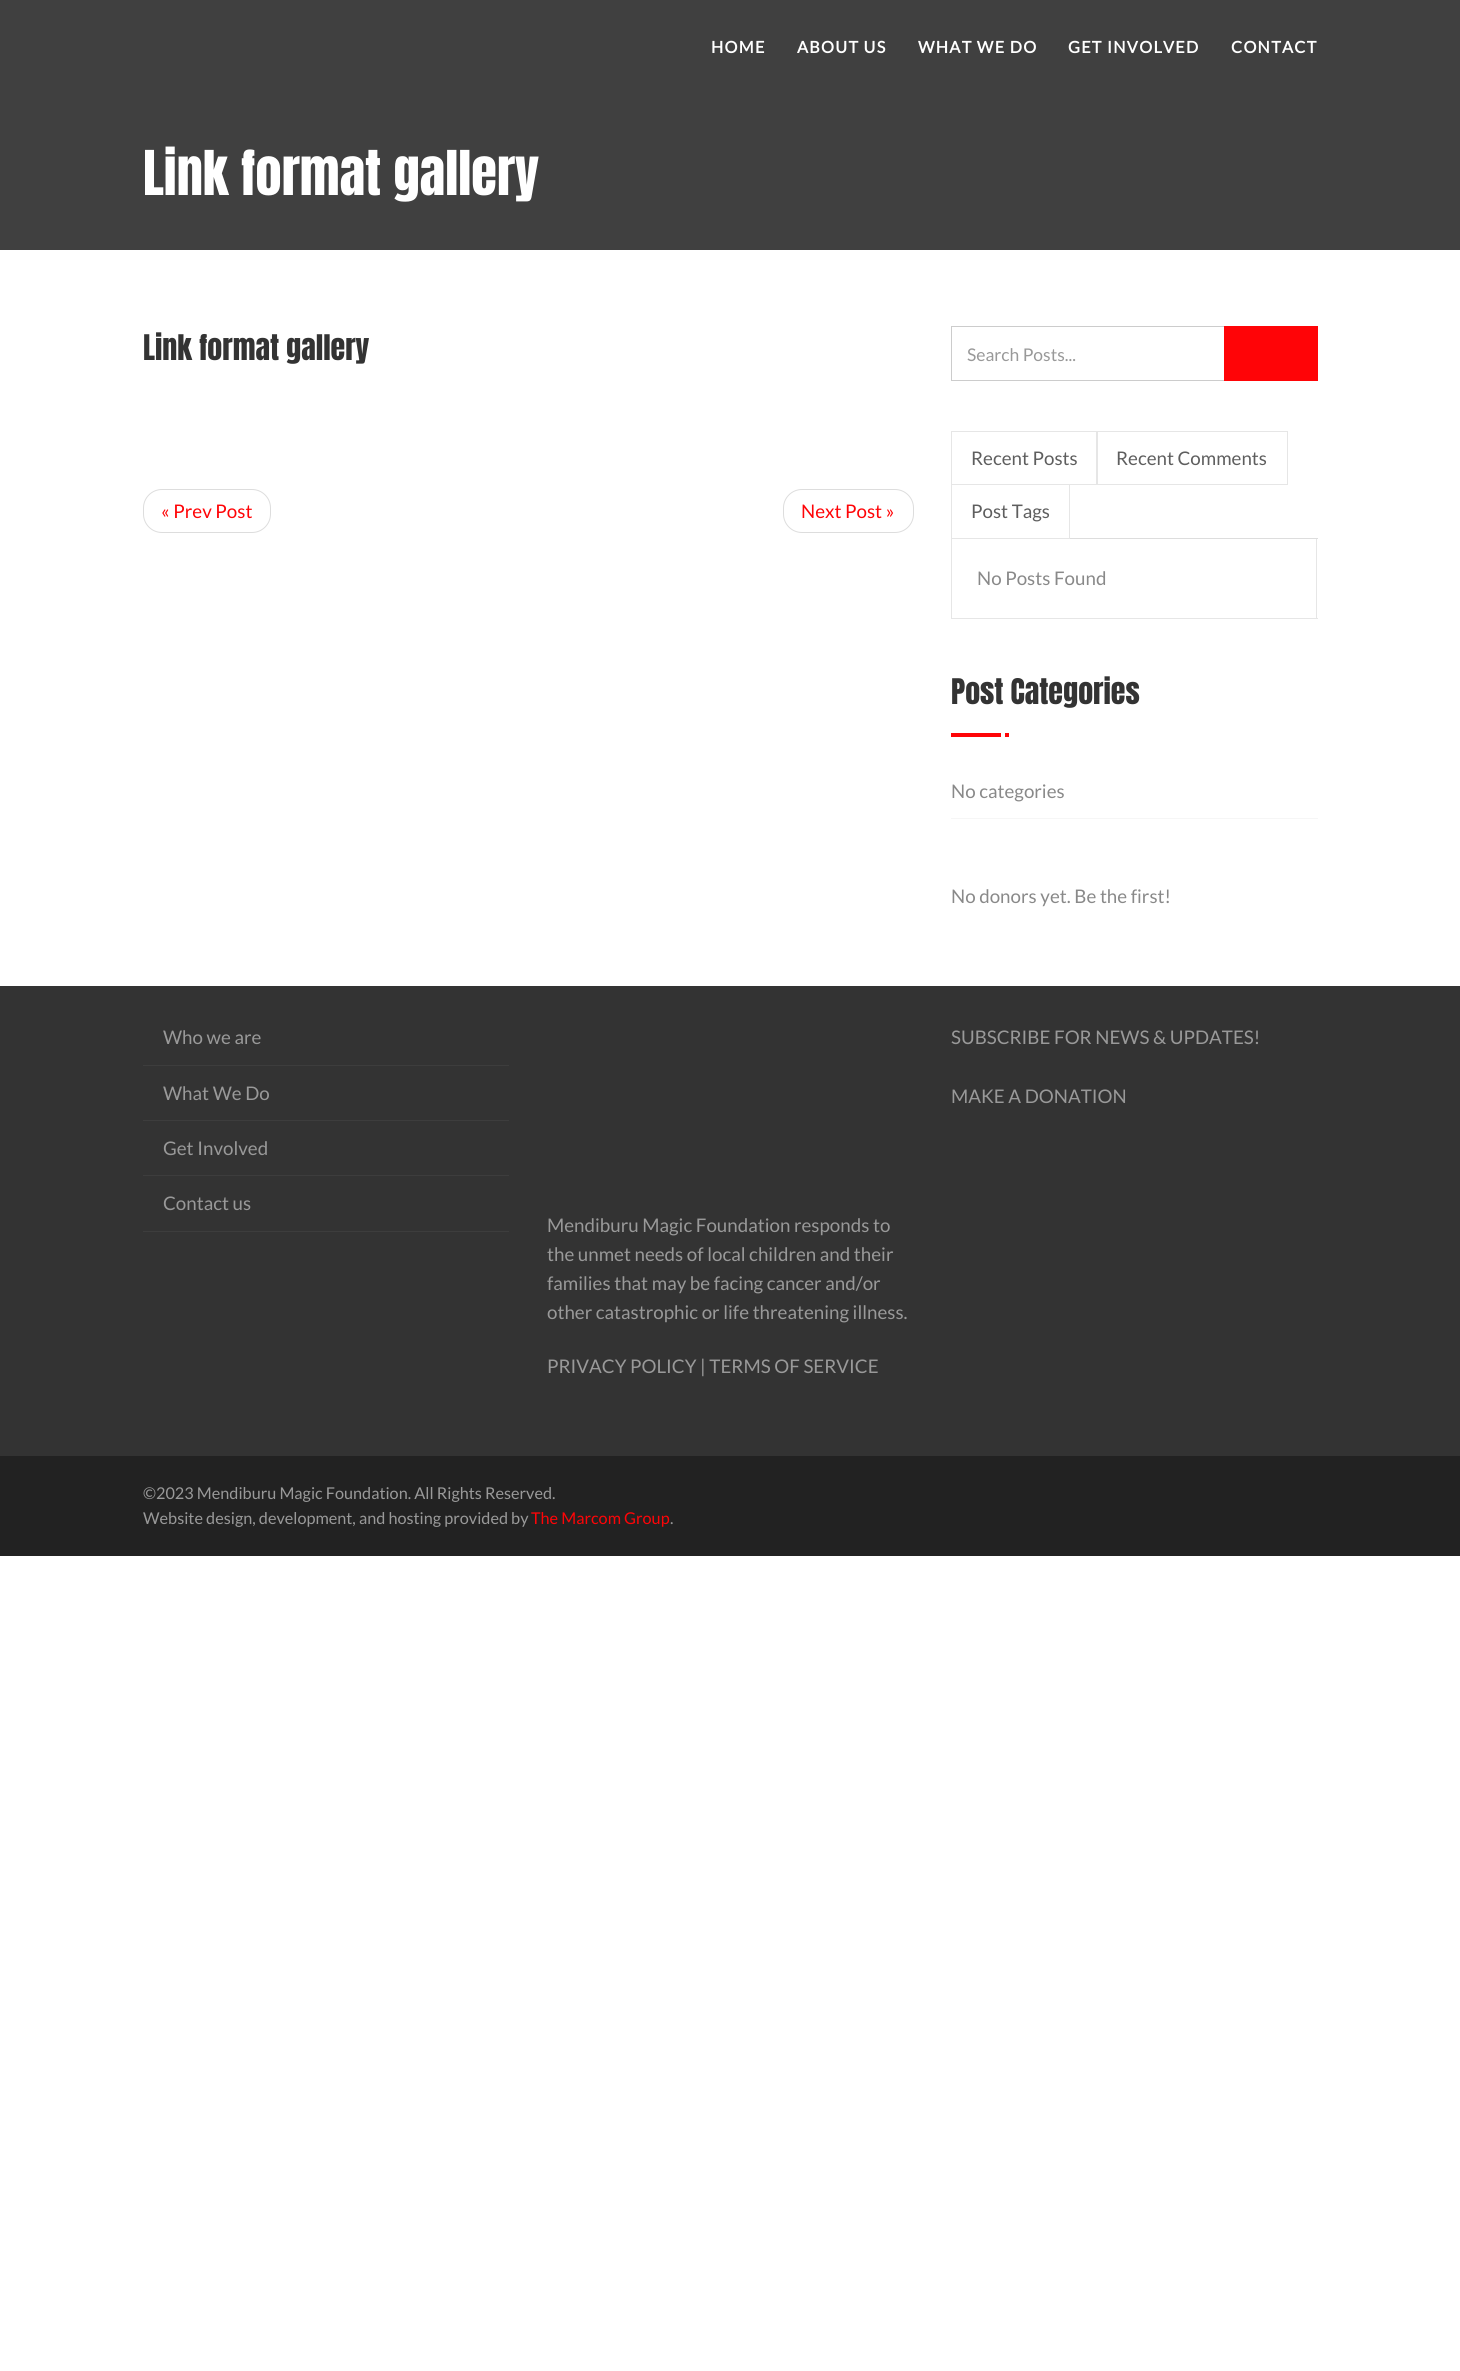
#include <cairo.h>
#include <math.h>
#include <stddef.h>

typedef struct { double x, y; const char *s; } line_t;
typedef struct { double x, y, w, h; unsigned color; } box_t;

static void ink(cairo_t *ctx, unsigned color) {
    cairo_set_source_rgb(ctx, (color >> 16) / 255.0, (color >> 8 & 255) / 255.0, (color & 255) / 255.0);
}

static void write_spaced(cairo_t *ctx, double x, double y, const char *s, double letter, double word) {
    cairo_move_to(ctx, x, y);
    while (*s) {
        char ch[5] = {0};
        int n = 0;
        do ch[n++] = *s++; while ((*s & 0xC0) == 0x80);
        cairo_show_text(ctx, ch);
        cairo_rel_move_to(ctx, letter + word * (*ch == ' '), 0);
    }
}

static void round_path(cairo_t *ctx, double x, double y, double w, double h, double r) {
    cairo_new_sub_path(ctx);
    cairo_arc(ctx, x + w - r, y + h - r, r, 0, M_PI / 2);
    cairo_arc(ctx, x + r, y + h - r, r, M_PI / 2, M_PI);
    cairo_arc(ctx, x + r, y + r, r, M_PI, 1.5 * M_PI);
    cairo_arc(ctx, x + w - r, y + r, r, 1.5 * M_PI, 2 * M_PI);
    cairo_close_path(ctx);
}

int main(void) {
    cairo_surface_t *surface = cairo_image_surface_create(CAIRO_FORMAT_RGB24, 1460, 2371);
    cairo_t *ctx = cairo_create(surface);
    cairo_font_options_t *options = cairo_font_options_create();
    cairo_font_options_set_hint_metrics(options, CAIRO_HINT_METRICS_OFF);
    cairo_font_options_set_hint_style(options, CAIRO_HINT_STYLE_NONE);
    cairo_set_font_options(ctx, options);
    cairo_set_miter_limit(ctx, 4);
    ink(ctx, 0xFFFFFF);
    cairo_paint(ctx);
    ink(ctx, 0x404040);
    cairo_rectangle(ctx, 0, 0, 1460, 250);
    cairo_fill(ctx);
    cairo_select_font_face(ctx, "Lato", CAIRO_FONT_SLANT_NORMAL, CAIRO_FONT_WEIGHT_BOLD);
    cairo_set_font_size(ctx, 16.25);
    ink(ctx, 0xFFFFFF);
    {
        static const line_t items[] = {
            {711, 53, "HOME"},
            {797, 53, "ABOUT US"},
            {918, 53, "WHAT WE DO"},
            {1068, 53, "GET INVOLVED"},
            {1231, 53, "CONTACT"},
        };
        for (size_t i = 0; i < sizeof items / sizeof *items; i++) {
            write_spaced(ctx, items[i].x, items[i].y, items[i].s, 1.25, 0);
        }
    }
    cairo_select_font_face(ctx, "Anton", CAIRO_FONT_SLANT_NORMAL, CAIRO_FONT_WEIGHT_NORMAL);
    cairo_set_font_size(ctx, 52.5);
    cairo_move_to(ctx, 143, 195);
    cairo_show_text(ctx, "Link format gallery");
    cairo_set_font_size(ctx, 30);
    ink(ctx, 0x333333);
    cairo_move_to(ctx, 143, 360);
    cairo_show_text(ctx, "Link format gallery");
    round_path(ctx, 143.5, 489.5, 127, 43, 18.5);
    ink(ctx, 0xDDDDDD);
    cairo_set_line_width(ctx, 1);
    cairo_stroke(ctx);
    cairo_select_font_face(ctx, "Lato", CAIRO_FONT_SLANT_NORMAL, CAIRO_FONT_WEIGHT_NORMAL);
    cairo_set_font_size(ctx, 18.75);
    ink(ctx, 0xFF0407);
    cairo_move_to(ctx, 161, 518);
    cairo_show_text(ctx, "« Prev Post");
    round_path(ctx, 783.5, 489.5, 130, 43, 18.5);
    ink(ctx, 0xDDDDDD);
    cairo_stroke(ctx);
    ink(ctx, 0xFF0407);
    cairo_move_to(ctx, 801, 518);
    cairo_show_text(ctx, "Next Post »");
    cairo_rectangle(ctx, 951.5, 326.5, 273, 54);
    ink(ctx, 0xCCCCCC);
    cairo_stroke(ctx);
    cairo_set_font_size(ctx, 17.5);
    ink(ctx, 0x999999);
    cairo_move_to(ctx, 967, 361);
    cairo_show_text(ctx, "Search Posts...");
    ink(ctx, 0xFF0407);
    cairo_rectangle(ctx, 1224, 326, 94, 55);
    cairo_fill(ctx);
    ink(ctx, 0xDDDDDD);
    cairo_rectangle(ctx, 1070, 538, 248, 1);
    cairo_fill(ctx);
    cairo_rectangle(ctx, 951.5, 431.5, 146, 53);
    ink(ctx, 0xE6E6E6);
    cairo_stroke(ctx);
    cairo_set_font_size(ctx, 18.75);
    ink(ctx, 0x5E5E5E);
    cairo_move_to(ctx, 971, 465);
    cairo_show_text(ctx, "Recent Posts");
    cairo_rectangle(ctx, 1096.5, 431.5, 191, 53);
    ink(ctx, 0xE6E6E6);
    cairo_stroke(ctx);
    ink(ctx, 0x5E5E5E);
    cairo_move_to(ctx, 1116, 465);
    cairo_show_text(ctx, "Recent Comments");
    cairo_rectangle(ctx, 951.5, 484.5, 118, 54);
    ink(ctx, 0xE6E6E6);
    cairo_stroke(ctx);
    ink(ctx, 0x5E5E5E);
    cairo_move_to(ctx, 971, 518);
    cairo_show_text(ctx, "Post Tags");
    {
        static const box_t items[] = {
            {1316, 539, 1, 80, 0xE6E6E6},
            {951, 618, 367, 1, 0xE6E6E6},
            {951, 539, 1, 80, 0xE6E6E6},
        };
        for (size_t i = 0; i < sizeof items / sizeof *items; i++) {
            ink(ctx, items[i].color);
            cairo_rectangle(ctx, items[i].x, items[i].y, items[i].w, items[i].h);
            cairo_fill(ctx);
        }
    }
    ink(ctx, 0x898989);
    cairo_move_to(ctx, 977, 585);
    cairo_show_text(ctx, "No Posts Found");
    cairo_select_font_face(ctx, "Anton", CAIRO_FONT_SLANT_NORMAL, CAIRO_FONT_WEIGHT_NORMAL);
    cairo_set_font_size(ctx, 30);
    ink(ctx, 0x333333);
    cairo_move_to(ctx, 951, 704);
    cairo_show_text(ctx, "Post Categories");
    {
        static const box_t items[] = {
            {951, 733, 50, 4, 0xFF0407},
            {1005, 733, 4, 4, 0xFF0407},
            {951, 818, 367, 1, 0xF6F6F6},
        };
        for (size_t i = 0; i < sizeof items / sizeof *items; i++) {
            ink(ctx, items[i].color);
            cairo_rectangle(ctx, items[i].x, items[i].y, items[i].w, items[i].h);
            cairo_fill(ctx);
        }
    }
    cairo_select_font_face(ctx, "Lato", CAIRO_FONT_SLANT_NORMAL, CAIRO_FONT_WEIGHT_NORMAL);
    cairo_set_font_size(ctx, 18.75);
    ink(ctx, 0x898989);
    cairo_move_to(ctx, 951, 798);
    cairo_show_text(ctx, "No categories");
    cairo_move_to(ctx, 951, 903);
    cairo_show_text(ctx, "No donors yet. Be the first!");
    ink(ctx, 0x333333);
    cairo_rectangle(ctx, 0, 986, 1460, 470);
    cairo_fill(ctx);
    ink(ctx, 0x3D3D3D);
    cairo_rectangle(ctx, 143, 1065, 366, 1);
    cairo_fill(ctx);
    ink(ctx, 0x999999);
    cairo_move_to(ctx, 163, 1044);
    cairo_show_text(ctx, "Who we are");
    ink(ctx, 0x3D3D3D);
    cairo_rectangle(ctx, 143, 1120, 366, 1);
    cairo_fill(ctx);
    ink(ctx, 0x999999);
    cairo_move_to(ctx, 163, 1100);
    cairo_show_text(ctx, "What We Do");
    ink(ctx, 0x3D3D3D);
    cairo_rectangle(ctx, 143, 1175, 366, 1);
    cairo_fill(ctx);
    ink(ctx, 0x999999);
    cairo_move_to(ctx, 163, 1155);
    cairo_show_text(ctx, "Get Involved");
    ink(ctx, 0x3D3D3D);
    cairo_rectangle(ctx, 143, 1231, 366, 1);
    cairo_fill(ctx);
    ink(ctx, 0x999999);
    {
        static const line_t items[] = {
            {163, 1210, "Contact us"},
            {951, 1044, "SUBSCRIBE FOR NEWS & UPDATES!"},
            {951, 1103, "MAKE A DONATION"},
            {547, 1232, "Mendiburu Magic Foundation responds to"},
            {547, 1261, "the unmet needs of local children and their"},
            {547, 1290, "families that may be facing cancer and/or"},
            {547, 1319, "other catastrophic or life threatening illness."},
            {547, 1373, "PRIVACY POLICY | TERMS OF SERVICE"},
        };
        for (size_t i = 0; i < sizeof items / sizeof *items; i++) {
            cairo_move_to(ctx, items[i].x, items[i].y);
            cairo_show_text(ctx, items[i].s);
        }
    }
    ink(ctx, 0x222222);
    cairo_rectangle(ctx, 0, 1456, 1460, 100);
    cairo_fill(ctx);
    cairo_set_font_size(ctx, 16.25);
    ink(ctx, 0x999999);
    cairo_move_to(ctx, 143, 1499);
    cairo_show_text(ctx, "©2023 Mendiburu Magic Foundation. All Rights Reserved.");
    cairo_move_to(ctx, 143, 1524);
    cairo_show_text(ctx, "Website design, development, and hosting provided by");
    ink(ctx, 0xFF0407);
    cairo_move_to(ctx, 531, 1524);
    cairo_show_text(ctx, "The Marcom Group");
    ink(ctx, 0x999999);
    cairo_move_to(ctx, 670, 1524);
    cairo_show_text(ctx, ".");
    cairo_surface_write_to_png(surface, "image.png");
    cairo_font_options_destroy(options);
    cairo_destroy(ctx);
    cairo_surface_destroy(surface);
    return 0;
}
